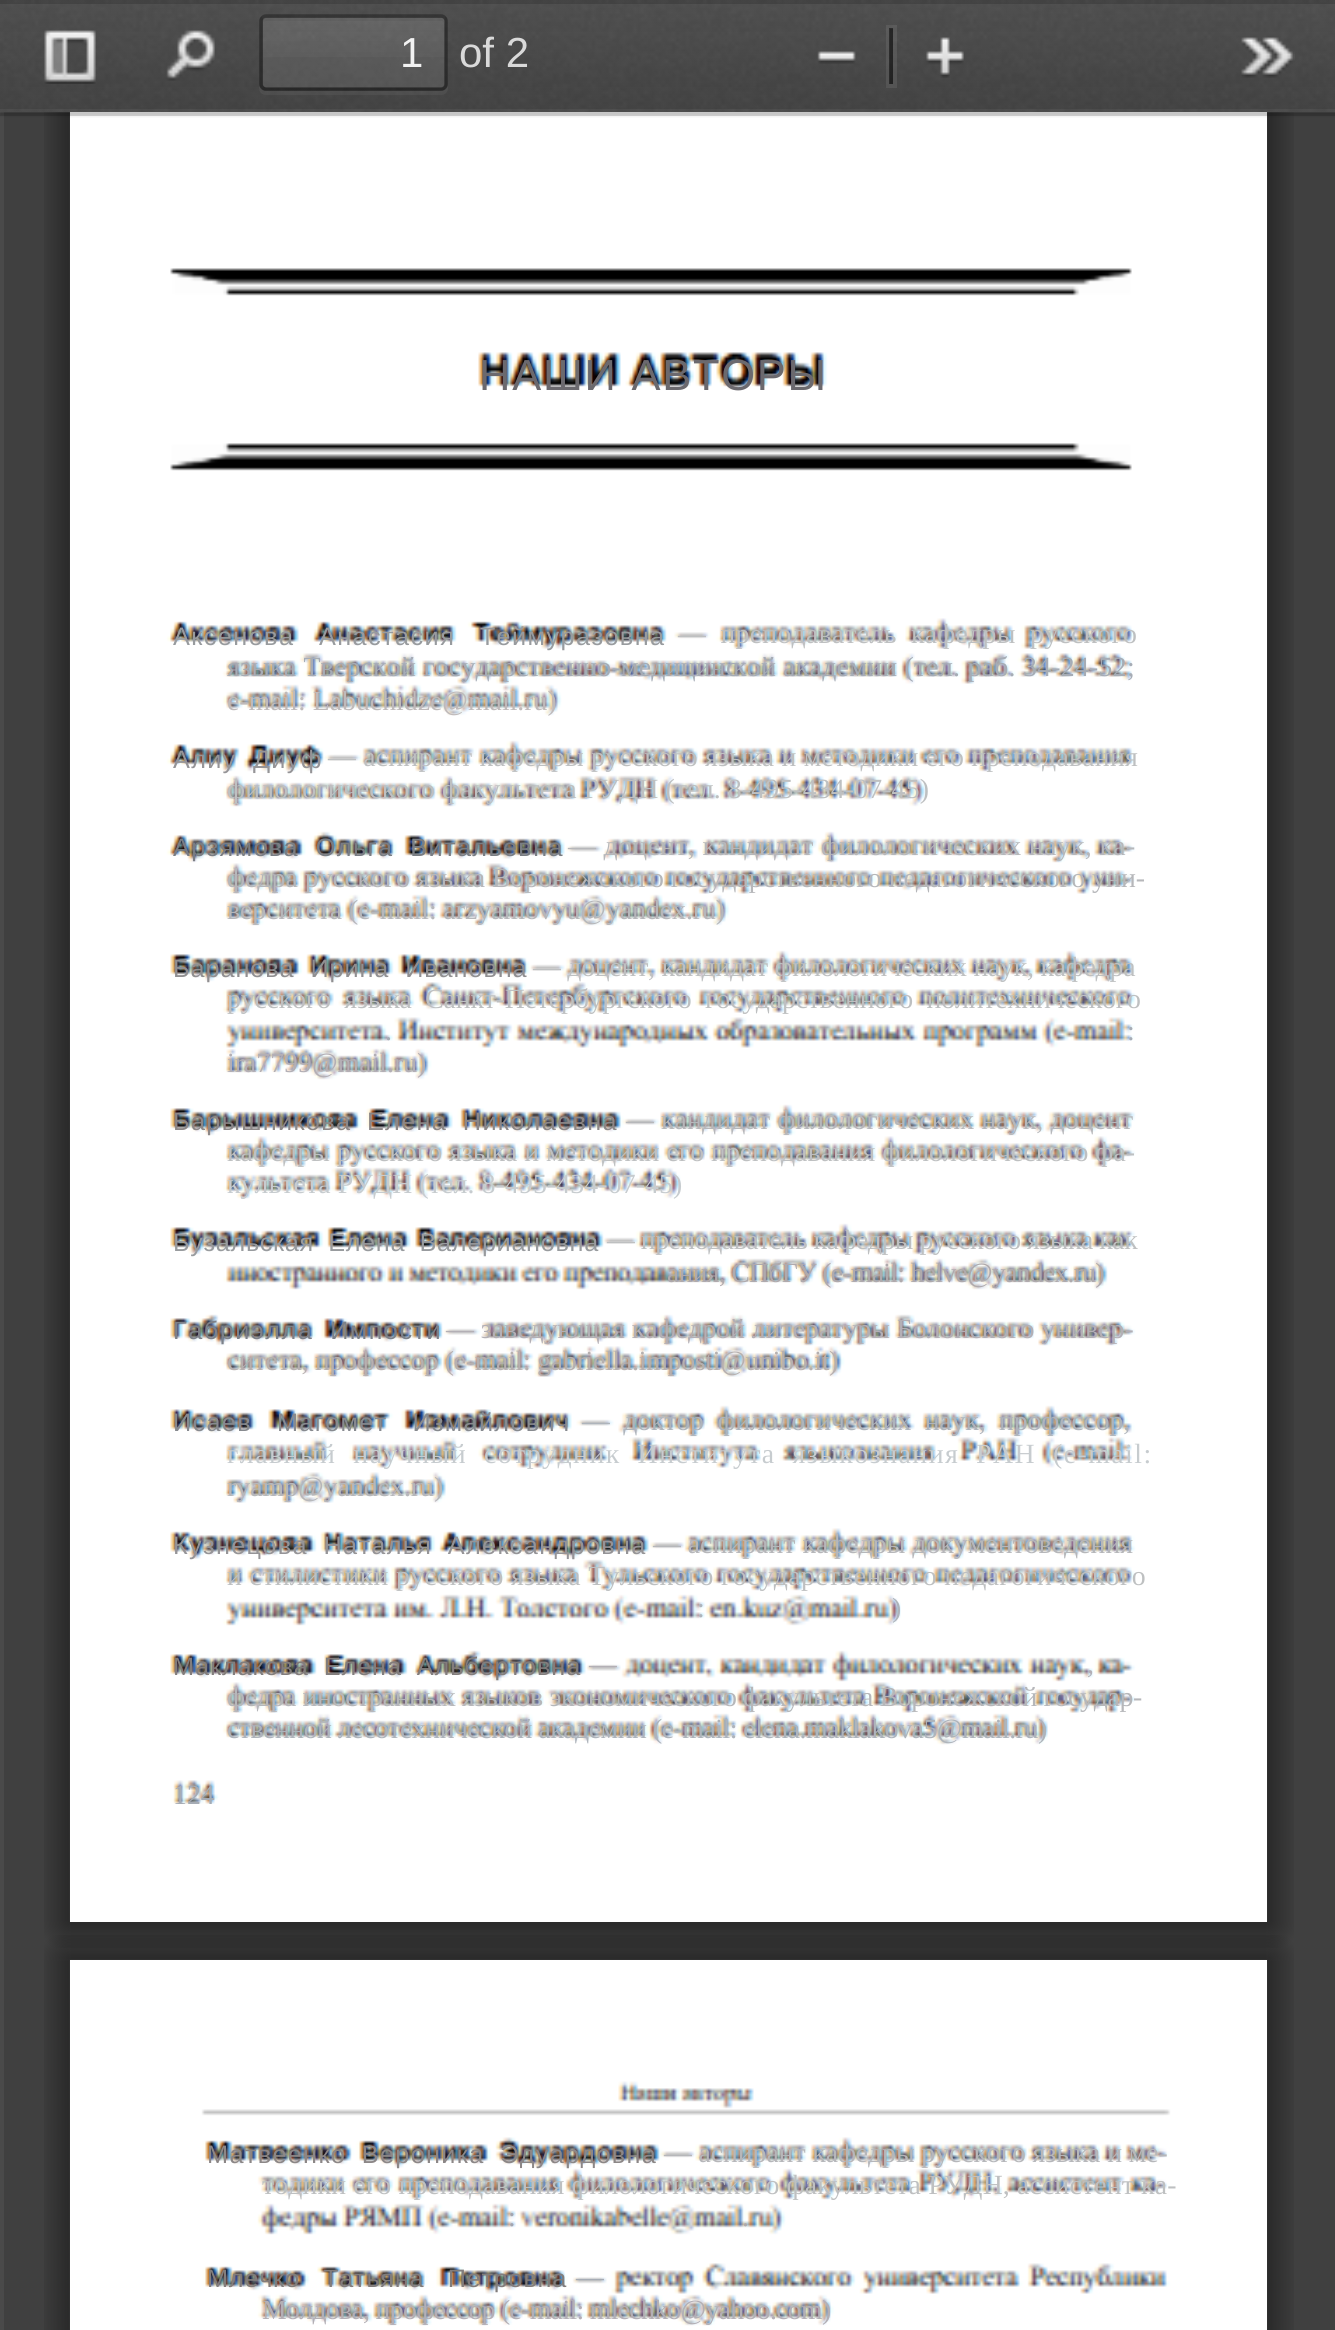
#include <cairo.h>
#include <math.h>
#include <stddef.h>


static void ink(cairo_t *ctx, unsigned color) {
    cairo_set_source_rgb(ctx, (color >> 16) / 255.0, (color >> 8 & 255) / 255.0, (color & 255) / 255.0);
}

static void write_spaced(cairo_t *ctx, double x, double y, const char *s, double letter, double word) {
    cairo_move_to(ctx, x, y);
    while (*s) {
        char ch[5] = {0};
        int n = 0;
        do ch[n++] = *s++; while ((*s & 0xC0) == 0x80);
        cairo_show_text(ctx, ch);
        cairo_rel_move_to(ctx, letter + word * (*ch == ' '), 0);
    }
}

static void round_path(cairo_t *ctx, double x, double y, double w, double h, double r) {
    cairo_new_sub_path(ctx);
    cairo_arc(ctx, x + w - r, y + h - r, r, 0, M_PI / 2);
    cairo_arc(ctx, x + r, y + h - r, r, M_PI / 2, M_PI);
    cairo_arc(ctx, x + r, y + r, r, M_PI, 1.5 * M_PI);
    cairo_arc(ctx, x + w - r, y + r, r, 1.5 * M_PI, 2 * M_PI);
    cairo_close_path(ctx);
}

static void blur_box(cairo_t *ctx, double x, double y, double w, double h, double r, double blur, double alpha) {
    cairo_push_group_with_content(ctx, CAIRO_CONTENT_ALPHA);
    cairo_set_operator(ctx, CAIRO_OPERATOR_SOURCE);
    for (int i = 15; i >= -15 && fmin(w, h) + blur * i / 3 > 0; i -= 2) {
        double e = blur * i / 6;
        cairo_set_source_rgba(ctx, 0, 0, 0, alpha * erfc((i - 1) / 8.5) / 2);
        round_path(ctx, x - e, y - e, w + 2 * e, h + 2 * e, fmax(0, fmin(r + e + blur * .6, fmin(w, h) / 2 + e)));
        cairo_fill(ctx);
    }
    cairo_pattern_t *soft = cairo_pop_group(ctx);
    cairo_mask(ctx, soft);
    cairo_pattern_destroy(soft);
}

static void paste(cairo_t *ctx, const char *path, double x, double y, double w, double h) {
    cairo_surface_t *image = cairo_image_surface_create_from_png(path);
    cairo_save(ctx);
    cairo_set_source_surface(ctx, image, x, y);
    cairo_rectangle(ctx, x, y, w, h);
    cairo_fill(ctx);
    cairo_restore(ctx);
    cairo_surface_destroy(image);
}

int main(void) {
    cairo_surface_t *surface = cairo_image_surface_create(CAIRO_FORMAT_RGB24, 1335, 2330);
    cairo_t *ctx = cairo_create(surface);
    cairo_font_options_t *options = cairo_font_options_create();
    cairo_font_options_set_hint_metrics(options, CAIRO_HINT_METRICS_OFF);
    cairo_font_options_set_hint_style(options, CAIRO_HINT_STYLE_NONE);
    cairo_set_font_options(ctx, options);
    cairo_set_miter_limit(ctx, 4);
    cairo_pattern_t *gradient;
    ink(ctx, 0x404040);
    cairo_paint(ctx);
    ink(ctx, 0x4A4A4A);
    cairo_rectangle(ctx, 0, 112, 4, 2218);
    cairo_fill(ctx);
    paste(ctx, "media/7.png", 44, 112, 1250, 1836);
    paste(ctx, "media/8.png", 70, 112, 1197, 1810);
    cairo_save(ctx);
    cairo_rectangle(ctx, 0, 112, 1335, 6);
    cairo_clip(ctx);
    ink(ctx, 0x000000);
    blur_box(ctx, 0, 4, 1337, 112, 0, 2, 0.1);
    cairo_restore(ctx);
    cairo_set_source_rgba(ctx, 0, 0, 0, 0.15);
    cairo_rectangle(ctx, 0, 112, 1335, 4);
    cairo_fill(ctx);
    paste(ctx, "media/1.png", 0, 0, 1335, 112);
    cairo_set_source_rgba(ctx, 1, 1, 1, 0.05);
    cairo_rectangle(ctx, 0, 109, 1335, 4);
    cairo_fill(ctx);
    cairo_set_source_rgba(ctx, 0, 0, 0, 0.15);
    cairo_rectangle(ctx, 0, 0, 1335, 4);
    cairo_fill(ctx);
    paste(ctx, "media/2.png", 44, 30, 52, 54);
    paste(ctx, "media/3.png", 166, 30, 49, 51);
    cairo_set_source_rgba(ctx, 1, 1, 1, 0.05);
    cairo_new_path(ctx);
    cairo_move_to(ctx, 259, 84);
    cairo_line_to(ctx, 259, 88);
    cairo_curve_to(ctx, 259, 92, 262, 95, 266, 95);
    cairo_line_to(ctx, 441, 95);
    cairo_curve_to(ctx, 445, 95, 448, 92, 448, 88);
    cairo_line_to(ctx, 448, 84);
    cairo_curve_to(ctx, 448, 88, 445, 91, 441, 91);
    cairo_line_to(ctx, 266, 91);
    cairo_curve_to(ctx, 262, 91, 259, 88, 259, 84);
    cairo_close_path(ctx);
    cairo_fill(ctx);
    cairo_set_source_rgba(ctx, 1, 1, 1, 0.09);
    round_path(ctx, 263, 18, 182, 70, 4);
    cairo_fill(ctx);
    gradient = cairo_pattern_create_linear(354, 17, 354, 88);
    cairo_pattern_add_color_stop_rgba(gradient, 0, 1, 1, 1, 0.05);
    cairo_pattern_add_color_stop_rgba(gradient, 1, 1, 1, 1, 0);
    cairo_set_source(ctx, gradient);
    cairo_pattern_destroy(gradient);
    cairo_rectangle(ctx, 263, 18, 182, 39);
    cairo_fill(ctx);
    cairo_set_source_rgba(ctx, 0, 0, 0, 0.05);
    cairo_new_path(ctx);
    cairo_move_to(ctx, 266, 21);
    cairo_line_to(ctx, 441, 21);
    cairo_curve_to(ctx, 443, 21, 444, 23, 444, 24);
    cairo_line_to(ctx, 444, 87);
    cairo_curve_to(ctx, 445, 86, 445, 85, 445, 84);
    cairo_line_to(ctx, 445, 22);
    cairo_curve_to(ctx, 445, 20, 443, 18, 441, 18);
    cairo_line_to(ctx, 267, 18);
    cairo_curve_to(ctx, 265, 18, 263, 20, 263, 22);
    cairo_close_path(ctx);
    cairo_fill(ctx);
    cairo_new_path(ctx);
    cairo_move_to(ctx, 262.5, 17.5);
    cairo_curve_to(ctx, 263.5, 16.5, 264.5, 16, 266, 16);
    cairo_line_to(ctx, 441, 16);
    cairo_curve_to(ctx, 442.5, 16, 443.5, 16.5, 444.5, 17.5);
    cairo_set_source_rgba(ctx, 0, 0, 0, 0.32);
    cairo_set_line_width(ctx, 3.5);
    cairo_stroke(ctx);
    cairo_new_path(ctx);
    cairo_move_to(ctx, 444.5, 17.5);
    cairo_curve_to(ctx, 445.5, 18.5, 446, 19.5, 446, 21);
    cairo_line_to(ctx, 446, 84);
    cairo_curve_to(ctx, 446, 85.5, 445.5, 86.5, 444.5, 87.5);
    cairo_set_source_rgba(ctx, 0, 0, 0, 0.38);
    cairo_stroke(ctx);
    cairo_new_path(ctx);
    cairo_move_to(ctx, 444.5, 87.5);
    cairo_curve_to(ctx, 443.5, 88.5, 442.5, 89, 441, 89);
    cairo_line_to(ctx, 266, 89);
    cairo_curve_to(ctx, 264.5, 89, 263.5, 88.5, 262.5, 87.5);
    cairo_set_source_rgba(ctx, 0, 0, 0, 0.42);
    cairo_stroke(ctx);
    cairo_new_path(ctx);
    cairo_move_to(ctx, 262.5, 87.5);
    cairo_curve_to(ctx, 261.5, 86.5, 261, 85.5, 261, 84);
    cairo_line_to(ctx, 261, 21);
    cairo_curve_to(ctx, 261, 19.5, 261.5, 18.5, 262.5, 17.5);
    cairo_set_source_rgba(ctx, 0, 0, 0, 0.38);
    cairo_stroke(ctx);
    cairo_select_font_face(ctx, "Liberation Sans", CAIRO_FONT_SLANT_NORMAL, CAIRO_FONT_WEIGHT_NORMAL);
    cairo_set_font_size(ctx, 42);
    ink(ctx, 0xF2F2F2);
    cairo_move_to(ctx, 400, 67);
    cairo_show_text(ctx, "1");
    ink(ctx, 0xD9D9D9);
    cairo_move_to(ctx, 459, 67);
    cairo_show_text(ctx, "of 2");
    paste(ctx, "media/4.png", 817, 51, 39, 13);
    cairo_rectangle(ctx, 888, 27, 7, 59);
    cairo_set_source_rgba(ctx, 1, 1, 1, 0.08);
    cairo_set_line_width(ctx, 4);
    cairo_stroke(ctx);
    cairo_set_source_rgba(ctx, 0, 0, 0, 0.5);
    cairo_rectangle(ctx, 889, 28, 4, 56);
    cairo_fill(ctx);
    paste(ctx, "media/5.png", 926, 37, 38, 41);
    paste(ctx, "media/6.png", 1241, 37, 54, 41);
    cairo_set_font_size(ctx, 43.5);
    ink(ctx, 0x6B696E);
    write_spaced(ctx, 479, 390, "НАШИ АВТОРЫ", 1.75, 0);
    cairo_set_font_size(ctx, 25.3);
    ink(ctx, 0x989B9E);
    write_spaced(ctx, 173, 645, "Аксенова   Анастасия   Теймуразовна", 1.4, -0.25);
    cairo_select_font_face(ctx, "Liberation Serif", CAIRO_FONT_SLANT_NORMAL, CAIRO_FONT_WEIGHT_NORMAL);
    cairo_set_font_size(ctx, 27.8);
    ink(ctx, 0xBEC0C1);
    write_spaced(ctx, 678, 643, "—  преподаватель  кафедры  русского", 0.25, 0);
    ink(ctx, 0xA6ACB5);
    write_spaced(ctx, 227, 676, "языка Тверской государственно-медицинс", 0.2, 0);
    write_spaced(ctx, 733, 676, "кой академии (тел. раб. 34-24-52;", 0.25, 0);
    ink(ctx, 0xBFBABA);
    cairo_move_to(ctx, 227, 710);
    cairo_show_text(ctx, "e-mail: Labuchidze@mail.ru)");
    cairo_select_font_face(ctx, "Liberation Sans", CAIRO_FONT_SLANT_NORMAL, CAIRO_FONT_WEIGHT_NORMAL);
    cairo_set_font_size(ctx, 25.3);
    ink(ctx, 0x959497);
    write_spaced(ctx, 173, 768, "Алиу  Диуф", 1.25, 0);
    cairo_select_font_face(ctx, "Liberation Serif", CAIRO_FONT_SLANT_NORMAL, CAIRO_FONT_WEIGHT_NORMAL);
    cairo_set_font_size(ctx, 27.8);
    ink(ctx, 0xBEC0C1);
    write_spaced(ctx, 328, 766, "— аспирант кафедры русского языка и методики его преподавания", 0.2, 0);
    write_spaced(ctx, 227, 798, "филологического факультета РУДН (тел. 8-495-434-07-45)", 0.13, 0);
    cairo_select_font_face(ctx, "Liberation Sans", CAIRO_FONT_SLANT_NORMAL, CAIRO_FONT_WEIGHT_NORMAL);
    cairo_set_font_size(ctx, 25.3);
    ink(ctx, 0x797D83);
    write_spaced(ctx, 173, 856, "Арзямова  Ольга  Витальевна", 1.35, 0);
    cairo_select_font_face(ctx, "Liberation Serif", CAIRO_FONT_SLANT_NORMAL, CAIRO_FONT_WEIGHT_NORMAL);
    cairo_set_font_size(ctx, 27.8);
    ink(ctx, 0xB6B7BA);
    write_spaced(ctx, 568, 855, "— доцент, кандидат филологических наук, ка-", 0.35, 0);
    cairo_move_to(ctx, 227, 887);
    cairo_show_text(ctx, "федра русского языка Воронежского государственного педагогического уни-");
    write_spaced(ctx, 227, 919, "верситета (e-mail: arzyamovyu@yandex.ru)", -0.05, 0);
    cairo_select_font_face(ctx, "Liberation Sans", CAIRO_FONT_SLANT_NORMAL, CAIRO_FONT_WEIGHT_NORMAL);
    cairo_set_font_size(ctx, 25.3);
    ink(ctx, 0x908F91);
    write_spaced(ctx, 173, 977, "Баранова  Ирина  Ивановна", 0.9, 0);
    cairo_select_font_face(ctx, "Liberation Serif", CAIRO_FONT_SLANT_NORMAL, CAIRO_FONT_WEIGHT_NORMAL);
    cairo_set_font_size(ctx, 27.8);
    ink(ctx, 0xBEC0C1);
    write_spaced(ctx, 533, 976, "— доцент, кандидат филологических наук, кафедра", -0.25, 0);
    write_spaced(ctx, 227, 1008, "русского  языка  Санкт-Петербургского  государственного  политехнического", -0.18, 0);
    ink(ctx, 0xA6ACB5);
    write_spaced(ctx, 385, 1040, ".", -0.1, 0);
    write_spaced(ctx, 1127, 1040, ":", -0.1, 0);
    ink(ctx, 0xB3AFB5);
    cairo_move_to(ctx, 227, 1072);
    cairo_show_text(ctx, "ira7799@mail.ru)");
    cairo_select_font_face(ctx, "Liberation Sans", CAIRO_FONT_SLANT_NORMAL, CAIRO_FONT_WEIGHT_NORMAL);
    cairo_set_font_size(ctx, 25.3);
    ink(ctx, 0x8C8787);
    write_spaced(ctx, 173, 1130, "Барышникова  Елена  Николаевна", 1.3, -0.5);
    cairo_select_font_face(ctx, "Liberation Serif", CAIRO_FONT_SLANT_NORMAL, CAIRO_FONT_WEIGHT_NORMAL);
    cairo_set_font_size(ctx, 27.8);
    ink(ctx, 0xB6B7BA);
    write_spaced(ctx, 626, 1129, "— кандидат филологических наук, доцент", 0.1, 0);
    ink(ctx, 0xBEC0C1);
    cairo_move_to(ctx, 227, 1161);
    cairo_show_text(ctx, "кафедры русского языка и методики его преподавания филологического фа-");
    ink(ctx, 0xC7CCCF);
    write_spaced(ctx, 227, 1193, "культета РУДН (тел. 8-495-434-07-45)", 0.1, 0);
    cairo_select_font_face(ctx, "Liberation Sans", CAIRO_FONT_SLANT_NORMAL, CAIRO_FONT_WEIGHT_NORMAL);
    cairo_set_font_size(ctx, 25.3);
    ink(ctx, 0x989B9E);
    write_spaced(ctx, 173, 1251, "Бузальская  Елена  Валериановна", 0.65, -0.5);
    cairo_select_font_face(ctx, "Liberation Serif", CAIRO_FONT_SLANT_NORMAL, CAIRO_FONT_WEIGHT_NORMAL);
    cairo_set_font_size(ctx, 27.8);
    ink(ctx, 0xBEC0C1);
    write_spaced(ctx, 607, 1249, "— преподаватель кафедры русского языка как", -0.5, 0);
    ink(ctx, 0xAFAAAD);
    write_spaced(ctx, 667, 1282, "ания, СПбГУ (e-mail: helve@yandex.ru)", -0.75, 0);
    cairo_select_font_face(ctx, "Liberation Sans", CAIRO_FONT_SLANT_NORMAL, CAIRO_FONT_WEIGHT_NORMAL);
    cairo_set_font_size(ctx, 25.3);
    ink(ctx, 0x7D8189);
    write_spaced(ctx, 173, 1339, "Габриэлла  Импости", 1.47, 0);
    cairo_select_font_face(ctx, "Liberation Serif", CAIRO_FONT_SLANT_NORMAL, CAIRO_FONT_WEIGHT_NORMAL);
    cairo_set_font_size(ctx, 27.8);
    ink(ctx, 0xB3AFB5);
    cairo_move_to(ctx, 446, 1338);
    cairo_show_text(ctx, "— заведующая кафедрой литературы Болонского универ-");
    ink(ctx, 0xB6B0AF);
    write_spaced(ctx, 227, 1370, "ситета, профессор (e-mail: gabriella.imposti@unibo.it)", -0.27, 0);
    cairo_select_font_face(ctx, "Liberation Sans", CAIRO_FONT_SLANT_NORMAL, CAIRO_FONT_WEIGHT_NORMAL);
    cairo_set_font_size(ctx, 25.3);
    ink(ctx, 0x878A8F);
    write_spaced(ctx, 173, 1431, "Исаев   Магомет   Измайлович", 1.3, 0);
    cairo_select_font_face(ctx, "Liberation Serif", CAIRO_FONT_SLANT_NORMAL, CAIRO_FONT_WEIGHT_NORMAL);
    cairo_set_font_size(ctx, 27.8);
    ink(ctx, 0xAEB4BB);
    write_spaced(ctx, 582, 1430, "—  доктор  филологических  наук,  профессор,", -0.15, 0);
    ink(ctx, 0xC7CCCF);
    write_spaced(ctx, 227, 1463, "главный  научный  сотрудник  Института  языкознания  РАН  (e-mail:", 1.47, 0);
    ink(ctx, 0xB6B7BA);
    cairo_move_to(ctx, 227, 1496);
    cairo_show_text(ctx, "ryamp@yandex.ru)");
    cairo_select_font_face(ctx, "Liberation Sans", CAIRO_FONT_SLANT_NORMAL, CAIRO_FONT_WEIGHT_NORMAL);
    cairo_set_font_size(ctx, 25.3);
    ink(ctx, 0x959497);
    write_spaced(ctx, 173, 1554, "Кузнецова  Наталья  Александровна", 1.3, -0.5);
    cairo_select_font_face(ctx, "Liberation Serif", CAIRO_FONT_SLANT_NORMAL, CAIRO_FONT_WEIGHT_NORMAL);
    cairo_set_font_size(ctx, 27.8);
    ink(ctx, 0xB6B7BA);
    cairo_move_to(ctx, 653, 1553);
    cairo_show_text(ctx, "— аспирант кафедры документоведения");
    ink(ctx, 0xBEC0C1);
    write_spaced(ctx, 227, 1585, "и стилистики русского языка Тульского государственного педагогического", 0.33, 0);
    ink(ctx, 0xAEB4BB);
    cairo_move_to(ctx, 697, 1617);
    cairo_show_text(ctx, ":");
    cairo_move_to(ctx, 892, 1617);
    cairo_show_text(ctx, ")");
    cairo_select_font_face(ctx, "Liberation Sans", CAIRO_FONT_SLANT_NORMAL, CAIRO_FONT_WEIGHT_NORMAL);
    cairo_set_font_size(ctx, 25.3);
    ink(ctx, 0x827D7C);
    write_spaced(ctx, 173, 1675, "Маклакова  Елена  Альбертовна", 0.9, -0.5);
    cairo_select_font_face(ctx, "Liberation Serif", CAIRO_FONT_SLANT_NORMAL, CAIRO_FONT_WEIGHT_NORMAL);
    cairo_set_font_size(ctx, 27.8);
    ink(ctx, 0xB3AFB5);
    cairo_move_to(ctx, 589, 1673);
    cairo_show_text(ctx, "—");
    cairo_move_to(ctx, 1087, 1673);
    cairo_show_text(ctx, ",");
    ink(ctx, 0xB6B7BA);
    write_spaced(ctx, 227, 1706, "федра иностранных языков экономического факультета Воронежской государ-", -0.35, 0);
    ink(ctx, 0xAEB4BB);
    write_spaced(ctx, 227, 1738, "ственной лесотехнической академии (e-mail: elena.maklakova5@mail.ru)", -0.5, 0);
    ink(ctx, 0xA6ACB5);
    cairo_move_to(ctx, 173, 1804);
    cairo_show_text(ctx, "124");
    paste(ctx, "media/9.png", 44, 1935, 1250, 395);
    paste(ctx, "media/10.png", 70, 1960, 1197, 370);
    cairo_select_font_face(ctx, "Liberation Sans", CAIRO_FONT_SLANT_NORMAL, CAIRO_FONT_WEIGHT_NORMAL);
    cairo_set_font_size(ctx, 25.3);
    ink(ctx, 0x8C8787);
    write_spaced(ctx, 207, 2163, "Матвеенко  Вероника  Эдуардовна", 1.3, -0.5);
    cairo_select_font_face(ctx, "Liberation Serif", CAIRO_FONT_SLANT_NORMAL, CAIRO_FONT_WEIGHT_NORMAL);
    cairo_set_font_size(ctx, 27.8);
    ink(ctx, 0xB6B7BA);
    write_spaced(ctx, 664, 2162, "— аспирант кафедры русского языка и ме-", -0.1, 0);
    ink(ctx, 0xBEC0C1);
    write_spaced(ctx, 262, 2194, "тодики его преподавания филологического факультета РУДН, ассистент ка-", 0.13, 0);
    ink(ctx, 0xA3A5AF);
    cairo_move_to(ctx, 508, 2226);
    cairo_show_text(ctx, ":");
    ink(ctx, 0xAFAAAD);
    cairo_move_to(ctx, 742, 2226);
    cairo_show_text(ctx, ".");
    cairo_select_font_face(ctx, "Liberation Sans", CAIRO_FONT_SLANT_NORMAL, CAIRO_FONT_WEIGHT_NORMAL);
    cairo_set_font_size(ctx, 25.3);
    ink(ctx, 0x827D7C);
    write_spaced(ctx, 207, 2287, "Млечко   Татьяна   Петровна", 0.75, 0);
    cairo_select_font_face(ctx, "Liberation Serif", CAIRO_FONT_SLANT_NORMAL, CAIRO_FONT_WEIGHT_NORMAL);
    cairo_set_font_size(ctx, 27.8);
    ink(ctx, 0xA6ACB5);
    cairo_move_to(ctx, 576, 2286);
    cairo_show_text(ctx, "—");
    ink(ctx, 0xB3AFB5);
    write_spaced(ctx, 262, 2319, "Молдова, профессор (e-mail: mlechko@yahoo.com)", -0.7, 0);
    cairo_surface_write_to_png(surface, "image.png");
    cairo_font_options_destroy(options);
    cairo_destroy(ctx);
    cairo_surface_destroy(surface);
    return 0;
}
